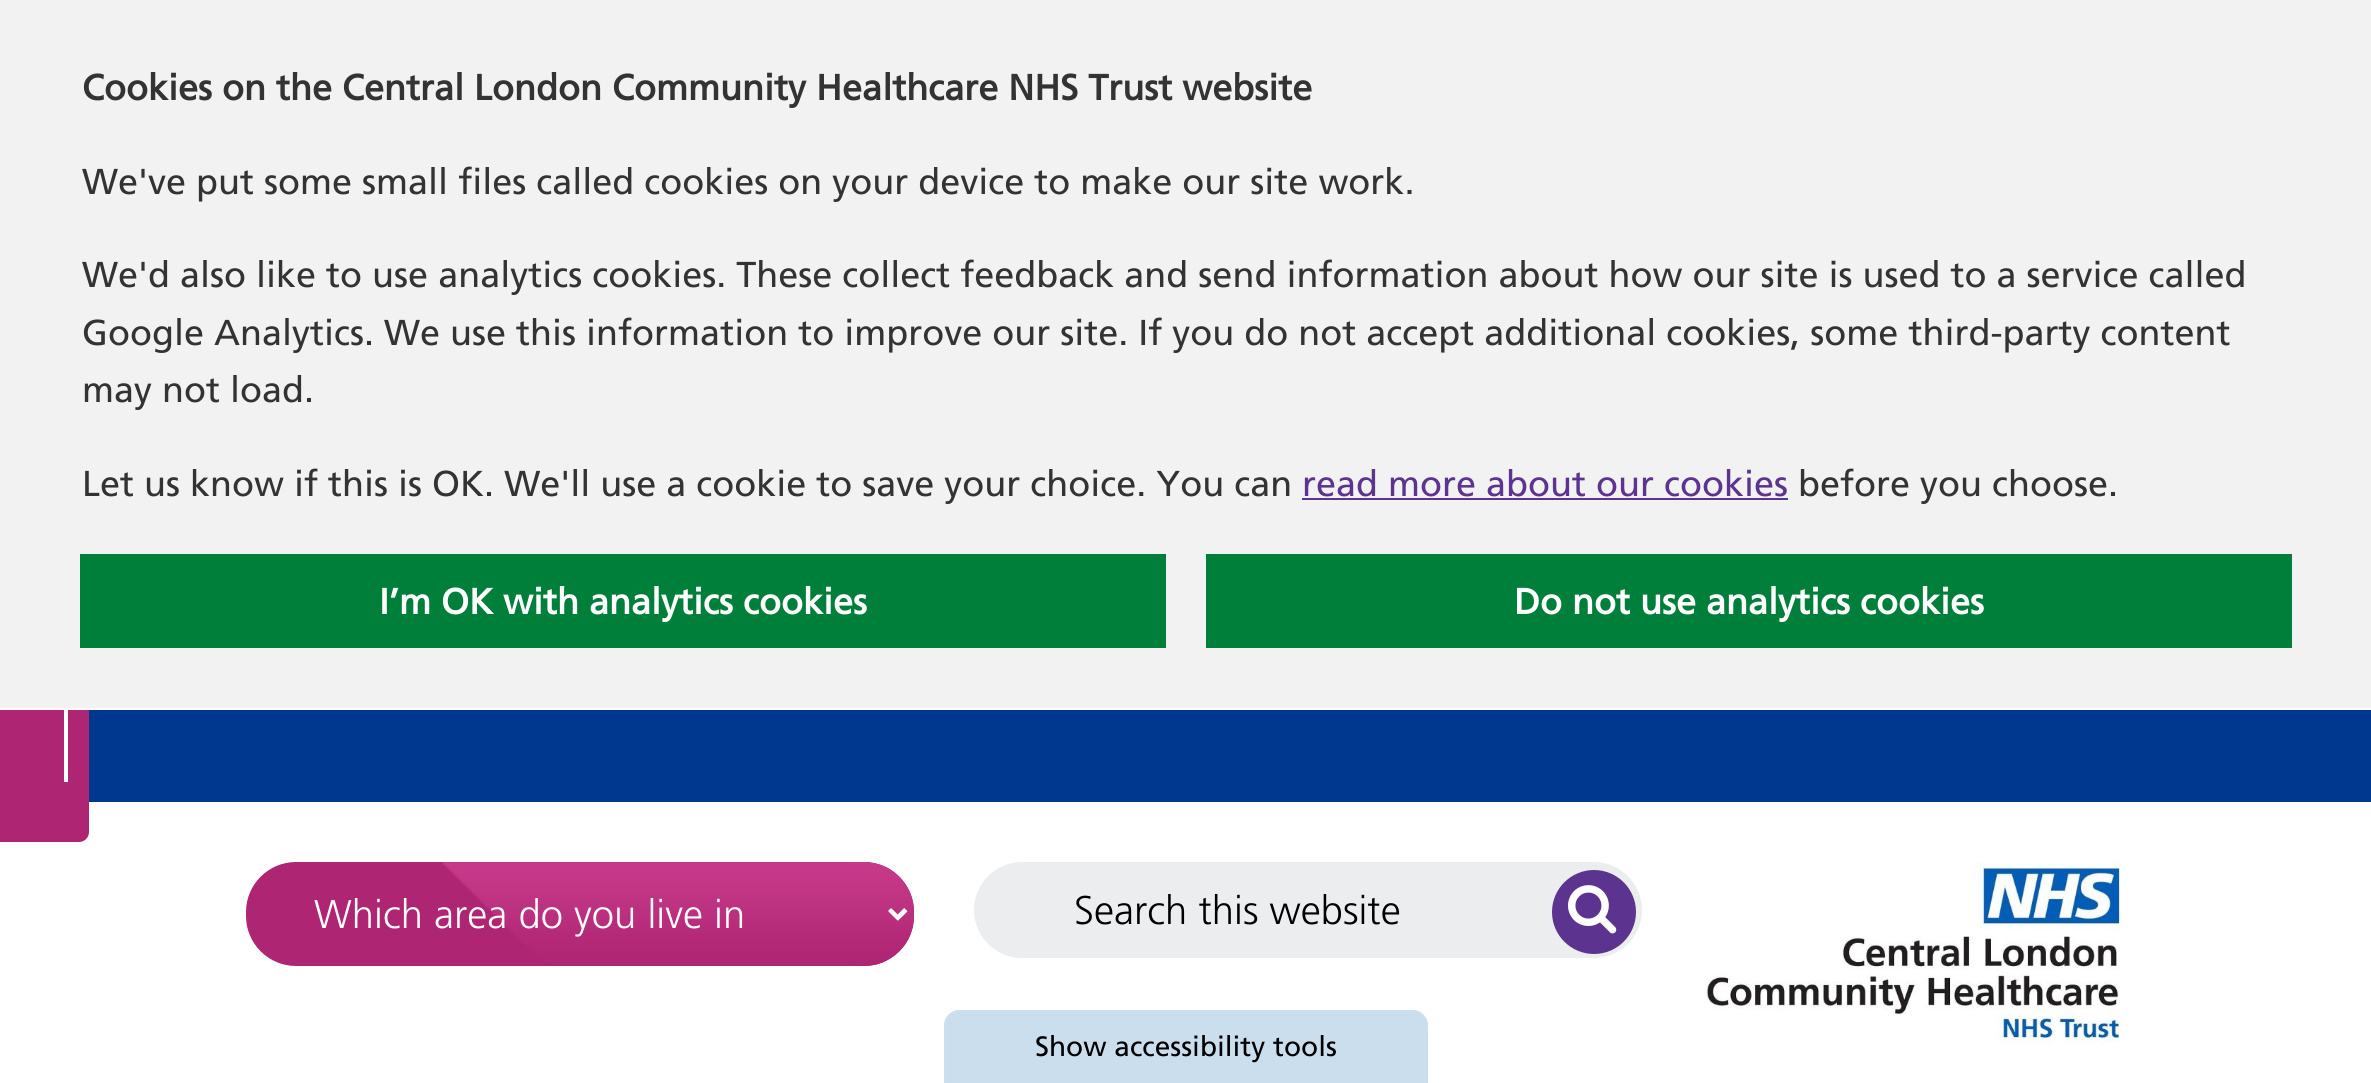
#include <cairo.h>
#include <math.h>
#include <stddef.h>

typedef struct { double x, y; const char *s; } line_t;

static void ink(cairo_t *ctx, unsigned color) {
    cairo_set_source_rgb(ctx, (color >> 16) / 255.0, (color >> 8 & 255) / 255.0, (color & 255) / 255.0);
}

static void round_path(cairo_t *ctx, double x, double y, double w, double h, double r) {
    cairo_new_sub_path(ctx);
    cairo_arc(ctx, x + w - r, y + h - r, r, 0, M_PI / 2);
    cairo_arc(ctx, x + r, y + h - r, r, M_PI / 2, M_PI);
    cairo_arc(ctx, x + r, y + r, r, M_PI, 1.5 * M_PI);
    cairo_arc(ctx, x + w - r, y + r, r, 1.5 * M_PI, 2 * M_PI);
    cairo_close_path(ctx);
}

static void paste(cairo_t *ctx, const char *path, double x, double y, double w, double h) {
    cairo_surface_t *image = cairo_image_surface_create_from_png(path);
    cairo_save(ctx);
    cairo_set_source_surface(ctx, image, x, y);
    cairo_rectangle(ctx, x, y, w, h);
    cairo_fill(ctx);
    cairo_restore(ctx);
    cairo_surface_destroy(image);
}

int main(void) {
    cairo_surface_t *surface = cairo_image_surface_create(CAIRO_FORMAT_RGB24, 2371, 1083);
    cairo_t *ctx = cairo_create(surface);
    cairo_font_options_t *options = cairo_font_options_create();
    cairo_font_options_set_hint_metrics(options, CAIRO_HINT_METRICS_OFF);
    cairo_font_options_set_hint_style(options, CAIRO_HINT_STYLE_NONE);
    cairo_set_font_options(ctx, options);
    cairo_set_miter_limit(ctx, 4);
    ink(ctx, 0xFFFFFF);
    cairo_paint(ctx);
    ink(ctx, 0xAE2573);
    cairo_new_path(ctx);
    cairo_move_to(ctx, 0, 842);
    cairo_line_to(ctx, 0, 452);
    cairo_line_to(ctx, 79, 452);
    cairo_curve_to(ctx, 84, 452, 89, 456, 89, 462);
    cairo_line_to(ctx, 89, 832);
    cairo_curve_to(ctx, 89, 838, 84, 842, 79, 842);
    cairo_close_path(ctx);
    cairo_fill(ctx);
    ink(ctx, 0xF2F2F2);
    cairo_rectangle(ctx, 0, 0, 2371, 708);
    cairo_fill(ctx);
    ink(ctx, 0xFFFFFF);
    cairo_rectangle(ctx, 0, 708, 89, 2);
    cairo_fill(ctx);
    cairo_select_font_face(ctx, "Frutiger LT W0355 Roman", CAIRO_FONT_SLANT_NORMAL, CAIRO_FONT_WEIGHT_BOLD);
    cairo_set_font_size(ctx, 36);
    ink(ctx, 0x333333);
    cairo_move_to(ctx, 82, 100);
    cairo_show_text(ctx, "Cookies on the Central London Community Healthcare NHS Trust website");
    cairo_select_font_face(ctx, "Frutiger", CAIRO_FONT_SLANT_NORMAL, CAIRO_FONT_WEIGHT_NORMAL);
    {
        static const line_t items[] = {
            {82, 194, "We've put some small files called cookies on your device to make our site work."},
            {82, 287, "We'd also like to use analytics cookies. These collect feedback and send information about how our site is used to a service called"},
            {82, 345, "Google Analytics. We use this information to improve our site. If you do not accept additional cookies, some third-party content"},
            {82, 402, "may not load."},
            {82, 496, "Let us know if this is OK. We'll use a cookie to save your choice. You can"},
        };
        for (size_t i = 0; i < sizeof items / sizeof *items; i++) {
            cairo_move_to(ctx, items[i].x, items[i].y);
            cairo_show_text(ctx, items[i].s);
        }
    }
    ink(ctx, 0x5C338E);
    cairo_move_to(ctx, 1302, 496);
    cairo_show_text(ctx, "read more about our cookies");
    cairo_rectangle(ctx, 1302, 498, 486, 2);
    cairo_fill(ctx);
    ink(ctx, 0x333333);
    cairo_move_to(ctx, 1798, 496);
    cairo_show_text(ctx, "before you choose.");
    ink(ctx, 0x007F3A);
    cairo_rectangle(ctx, 80, 554, 1086, 94);
    cairo_fill(ctx);
    cairo_select_font_face(ctx, "Frutiger LT W0355 Roman", CAIRO_FONT_SLANT_NORMAL, CAIRO_FONT_WEIGHT_BOLD);
    ink(ctx, 0xFFFFFF);
    cairo_move_to(ctx, 379, 614);
    cairo_show_text(ctx, "I’m OK with analytics cookies");
    ink(ctx, 0x007F3A);
    cairo_rectangle(ctx, 1206, 554, 1086, 94);
    cairo_fill(ctx);
    ink(ctx, 0xFFFFFF);
    cairo_move_to(ctx, 1514, 614);
    cairo_show_text(ctx, "Do not use analytics cookies");
    cairo_rectangle(ctx, 64, 710, 4, 72);
    cairo_fill(ctx);
    ink(ctx, 0x003890);
    cairo_rectangle(ctx, 89, 710, 2282, 92);
    cairo_fill(ctx);
    ink(ctx, 0xAE2573);
    round_path(ctx, 246, 862, 668, 104, 50);
    cairo_fill(ctx);
    paste(ctx, "media/1.png", 442, 862, 472, 104);
    cairo_new_path(ctx);
    cairo_move_to(ctx, 889.5, 909.5);
    cairo_line_to(ctx, 897.5, 917.5);
    cairo_line_to(ctx, 905.5, 909.5);
    ink(ctx, 0xFFFFFF);
    cairo_set_line_width(ctx, 4);
    cairo_stroke(ctx);
    cairo_select_font_face(ctx, "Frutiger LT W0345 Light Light", CAIRO_FONT_SLANT_NORMAL, CAIRO_FONT_WEIGHT_NORMAL);
    cairo_set_font_size(ctx, 40);
    cairo_move_to(ctx, 314, 928);
    cairo_show_text(ctx, "Which area do you live in");
    ink(ctx, 0xEBEDEF);
    round_path(ctx, 974, 862, 668, 96, 48);
    cairo_fill(ctx);
    ink(ctx, 0x000000);
    cairo_move_to(ctx, 1074, 924);
    cairo_show_text(ctx, "Search this website");
    ink(ctx, 0x5C338E);
    cairo_new_path(ctx);
    cairo_arc(ctx, 1594, 912, 42, 0, 2 * M_PI);
    cairo_fill(ctx);
    paste(ctx, "media/2.png", 1568, 885, 49, 49);
    paste(ctx, "media/3.png", 1706, 862, 415, 182);
    ink(ctx, 0xCBDEEE);
    cairo_new_path(ctx);
    cairo_move_to(ctx, 960, 1010);
    cairo_line_to(ctx, 1412, 1010);
    cairo_curve_to(ctx, 1421, 1010, 1428, 1017, 1428, 1026);
    cairo_line_to(ctx, 1428, 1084);
    cairo_line_to(ctx, 944, 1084);
    cairo_line_to(ctx, 944, 1026);
    cairo_curve_to(ctx, 944, 1017, 951, 1010, 960, 1010);
    cairo_close_path(ctx);
    cairo_fill(ctx);
    ink(ctx, 0xCDDFEF);
    cairo_set_fill_rule(ctx, CAIRO_FILL_RULE_EVEN_ODD);
    cairo_new_path(ctx);
    cairo_move_to(ctx, 960, 1010);
    cairo_line_to(ctx, 1412, 1010);
    cairo_curve_to(ctx, 1421, 1010, 1428, 1017, 1428, 1026);
    cairo_line_to(ctx, 1428, 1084);
    cairo_line_to(ctx, 944, 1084);
    cairo_line_to(ctx, 944, 1026);
    cairo_curve_to(ctx, 944, 1017, 951, 1010, 960, 1010);
    cairo_close_path(ctx);
    cairo_move_to(ctx, 960, 1012);
    cairo_line_to(ctx, 1412, 1012);
    cairo_curve_to(ctx, 1420, 1012, 1426, 1018, 1426, 1026);
    cairo_line_to(ctx, 1426, 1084);
    cairo_line_to(ctx, 946, 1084);
    cairo_line_to(ctx, 946, 1026);
    cairo_curve_to(ctx, 946, 1018, 952, 1012, 960, 1012);
    cairo_close_path(ctx);
    cairo_fill(ctx);
    cairo_select_font_face(ctx, "Frutiger", CAIRO_FONT_SLANT_NORMAL, CAIRO_FONT_WEIGHT_NORMAL);
    cairo_set_font_size(ctx, 28);
    ink(ctx, 0x000000);
    cairo_move_to(ctx, 1035, 1056);
    cairo_show_text(ctx, "Show accessibility tools");
    cairo_surface_write_to_png(surface, "image.png");
    cairo_font_options_destroy(options);
    cairo_destroy(ctx);
    cairo_surface_destroy(surface);
    return 0;
}
